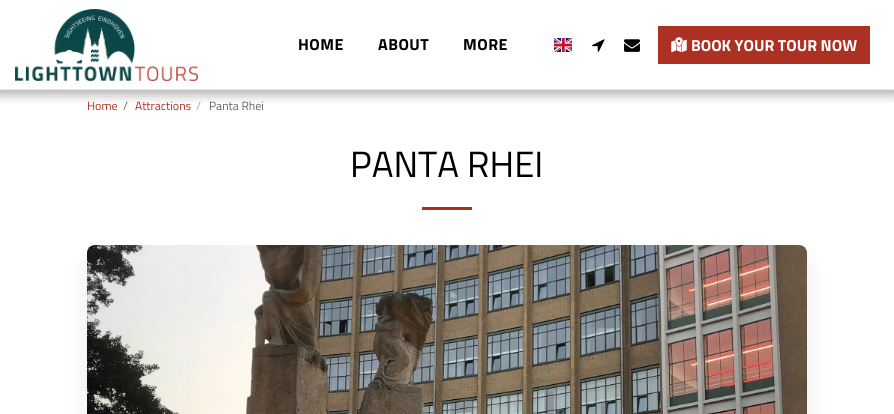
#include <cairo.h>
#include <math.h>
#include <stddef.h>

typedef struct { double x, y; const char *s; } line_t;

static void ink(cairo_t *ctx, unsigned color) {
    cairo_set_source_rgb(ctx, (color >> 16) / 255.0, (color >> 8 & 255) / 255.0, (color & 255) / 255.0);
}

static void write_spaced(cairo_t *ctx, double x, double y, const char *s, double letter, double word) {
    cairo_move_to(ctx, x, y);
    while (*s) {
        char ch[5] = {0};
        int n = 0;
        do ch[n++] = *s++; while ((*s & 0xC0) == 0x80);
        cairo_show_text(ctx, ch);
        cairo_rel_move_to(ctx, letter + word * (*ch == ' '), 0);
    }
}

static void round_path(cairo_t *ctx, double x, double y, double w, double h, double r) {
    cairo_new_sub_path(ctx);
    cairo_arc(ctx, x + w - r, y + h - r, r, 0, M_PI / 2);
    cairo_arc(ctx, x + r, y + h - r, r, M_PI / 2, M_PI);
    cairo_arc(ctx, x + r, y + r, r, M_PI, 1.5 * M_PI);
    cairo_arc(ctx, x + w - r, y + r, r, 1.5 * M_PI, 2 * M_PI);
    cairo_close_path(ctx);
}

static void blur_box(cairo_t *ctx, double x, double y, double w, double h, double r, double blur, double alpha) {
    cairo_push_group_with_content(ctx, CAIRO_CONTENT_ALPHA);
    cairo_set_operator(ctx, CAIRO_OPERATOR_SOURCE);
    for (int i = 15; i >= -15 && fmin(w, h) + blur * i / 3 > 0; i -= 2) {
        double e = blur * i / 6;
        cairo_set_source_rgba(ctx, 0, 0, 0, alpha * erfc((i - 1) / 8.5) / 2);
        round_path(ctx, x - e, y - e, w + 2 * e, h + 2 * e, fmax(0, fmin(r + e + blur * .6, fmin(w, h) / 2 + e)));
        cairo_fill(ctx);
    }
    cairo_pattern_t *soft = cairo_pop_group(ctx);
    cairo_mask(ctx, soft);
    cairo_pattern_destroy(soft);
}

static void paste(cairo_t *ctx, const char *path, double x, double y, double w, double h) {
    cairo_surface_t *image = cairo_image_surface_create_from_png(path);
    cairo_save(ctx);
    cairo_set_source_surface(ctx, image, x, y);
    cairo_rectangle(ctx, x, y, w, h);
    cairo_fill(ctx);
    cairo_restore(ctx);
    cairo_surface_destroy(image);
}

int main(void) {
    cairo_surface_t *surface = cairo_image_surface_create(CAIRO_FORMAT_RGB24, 894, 414);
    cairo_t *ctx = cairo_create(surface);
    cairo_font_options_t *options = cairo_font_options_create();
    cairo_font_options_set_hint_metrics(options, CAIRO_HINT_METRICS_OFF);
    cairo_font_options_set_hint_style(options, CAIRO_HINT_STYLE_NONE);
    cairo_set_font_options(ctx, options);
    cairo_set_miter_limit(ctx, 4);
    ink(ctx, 0xFFFFFF);
    cairo_paint(ctx);
    cairo_save(ctx);
    cairo_rectangle(ctx, 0, 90, 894, 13);
    cairo_clip(ctx);
    ink(ctx, 0x000000);
    blur_box(ctx, -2, 0, 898, 94, 0, 6, 0.35);
    cairo_restore(ctx);
    ink(ctx, 0xEBEBEB);
    cairo_rectangle(ctx, 0, 89, 894, 1);
    cairo_fill(ctx);
    paste(ctx, "media/1.png", 15, 9, 183, 72);
    cairo_select_font_face(ctx, "Titillium Web", CAIRO_FONT_SLANT_NORMAL, CAIRO_FONT_WEIGHT_BOLD);
    cairo_set_font_size(ctx, 16);
    ink(ctx, 0x000000);
    {
        static const line_t items[] = {
            {298, 50, "HOME"},
            {378, 50, "ABOUT"},
            {463, 50, "MORE"},
        };
        for (size_t i = 0; i < sizeof items / sizeof *items; i++) {
            write_spaced(ctx, items[i].x, items[i].y, items[i].s, 0.5, 0);
        }
    }
    paste(ctx, "media/2.png", 554, 38, 18, 14);
    paste(ctx, "media/3.png", 592, 39, 13, 13);
    paste(ctx, "media/4.png", 624, 39, 16, 13);
    ink(ctx, 0xAD3122);
    cairo_rectangle(ctx, 658, 26, 212, 38);
    cairo_fill(ctx);
    paste(ctx, "media/5.png", 671, 37, 16, 16);
    ink(ctx, 0xFFFFFF);
    cairo_move_to(ctx, 691, 51);
    cairo_show_text(ctx, "BOOK YOUR TOUR NOW");
    cairo_select_font_face(ctx, "Titillium Web", CAIRO_FONT_SLANT_NORMAL, CAIRO_FONT_WEIGHT_NORMAL);
    cairo_set_font_size(ctx, 12);
    ink(ctx, 0xAD3122);
    cairo_move_to(ctx, 87, 110);
    cairo_show_text(ctx, "Home");
    ink(ctx, 0x666666);
    cairo_move_to(ctx, 123, 110);
    cairo_show_text(ctx, "/");
    ink(ctx, 0xAD3122);
    cairo_move_to(ctx, 135, 110);
    cairo_show_text(ctx, "Attractions");
    ink(ctx, 0xA3A3A3);
    cairo_move_to(ctx, 196, 110);
    cairo_show_text(ctx, "/");
    ink(ctx, 0x666666);
    cairo_move_to(ctx, 209, 110);
    cairo_show_text(ctx, "Panta Rhei");
    cairo_set_font_size(ctx, 36.5);
    ink(ctx, 0x000000);
    cairo_move_to(ctx, 350, 177);
    cairo_show_text(ctx, "PANTA RHEI");
    ink(ctx, 0xAD3122);
    cairo_rectangle(ctx, 422, 207, 50, 3);
    cairo_fill(ctx);
    ink(ctx, 0x000000);
    blur_box(ctx, 87, 260, 720, 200, 8, 12.5, 0.08);
    paste(ctx, "media/6.png", 87, 245, 720, 169);
    cairo_surface_write_to_png(surface, "image.png");
    cairo_font_options_destroy(options);
    cairo_destroy(ctx);
    cairo_surface_destroy(surface);
    return 0;
}
